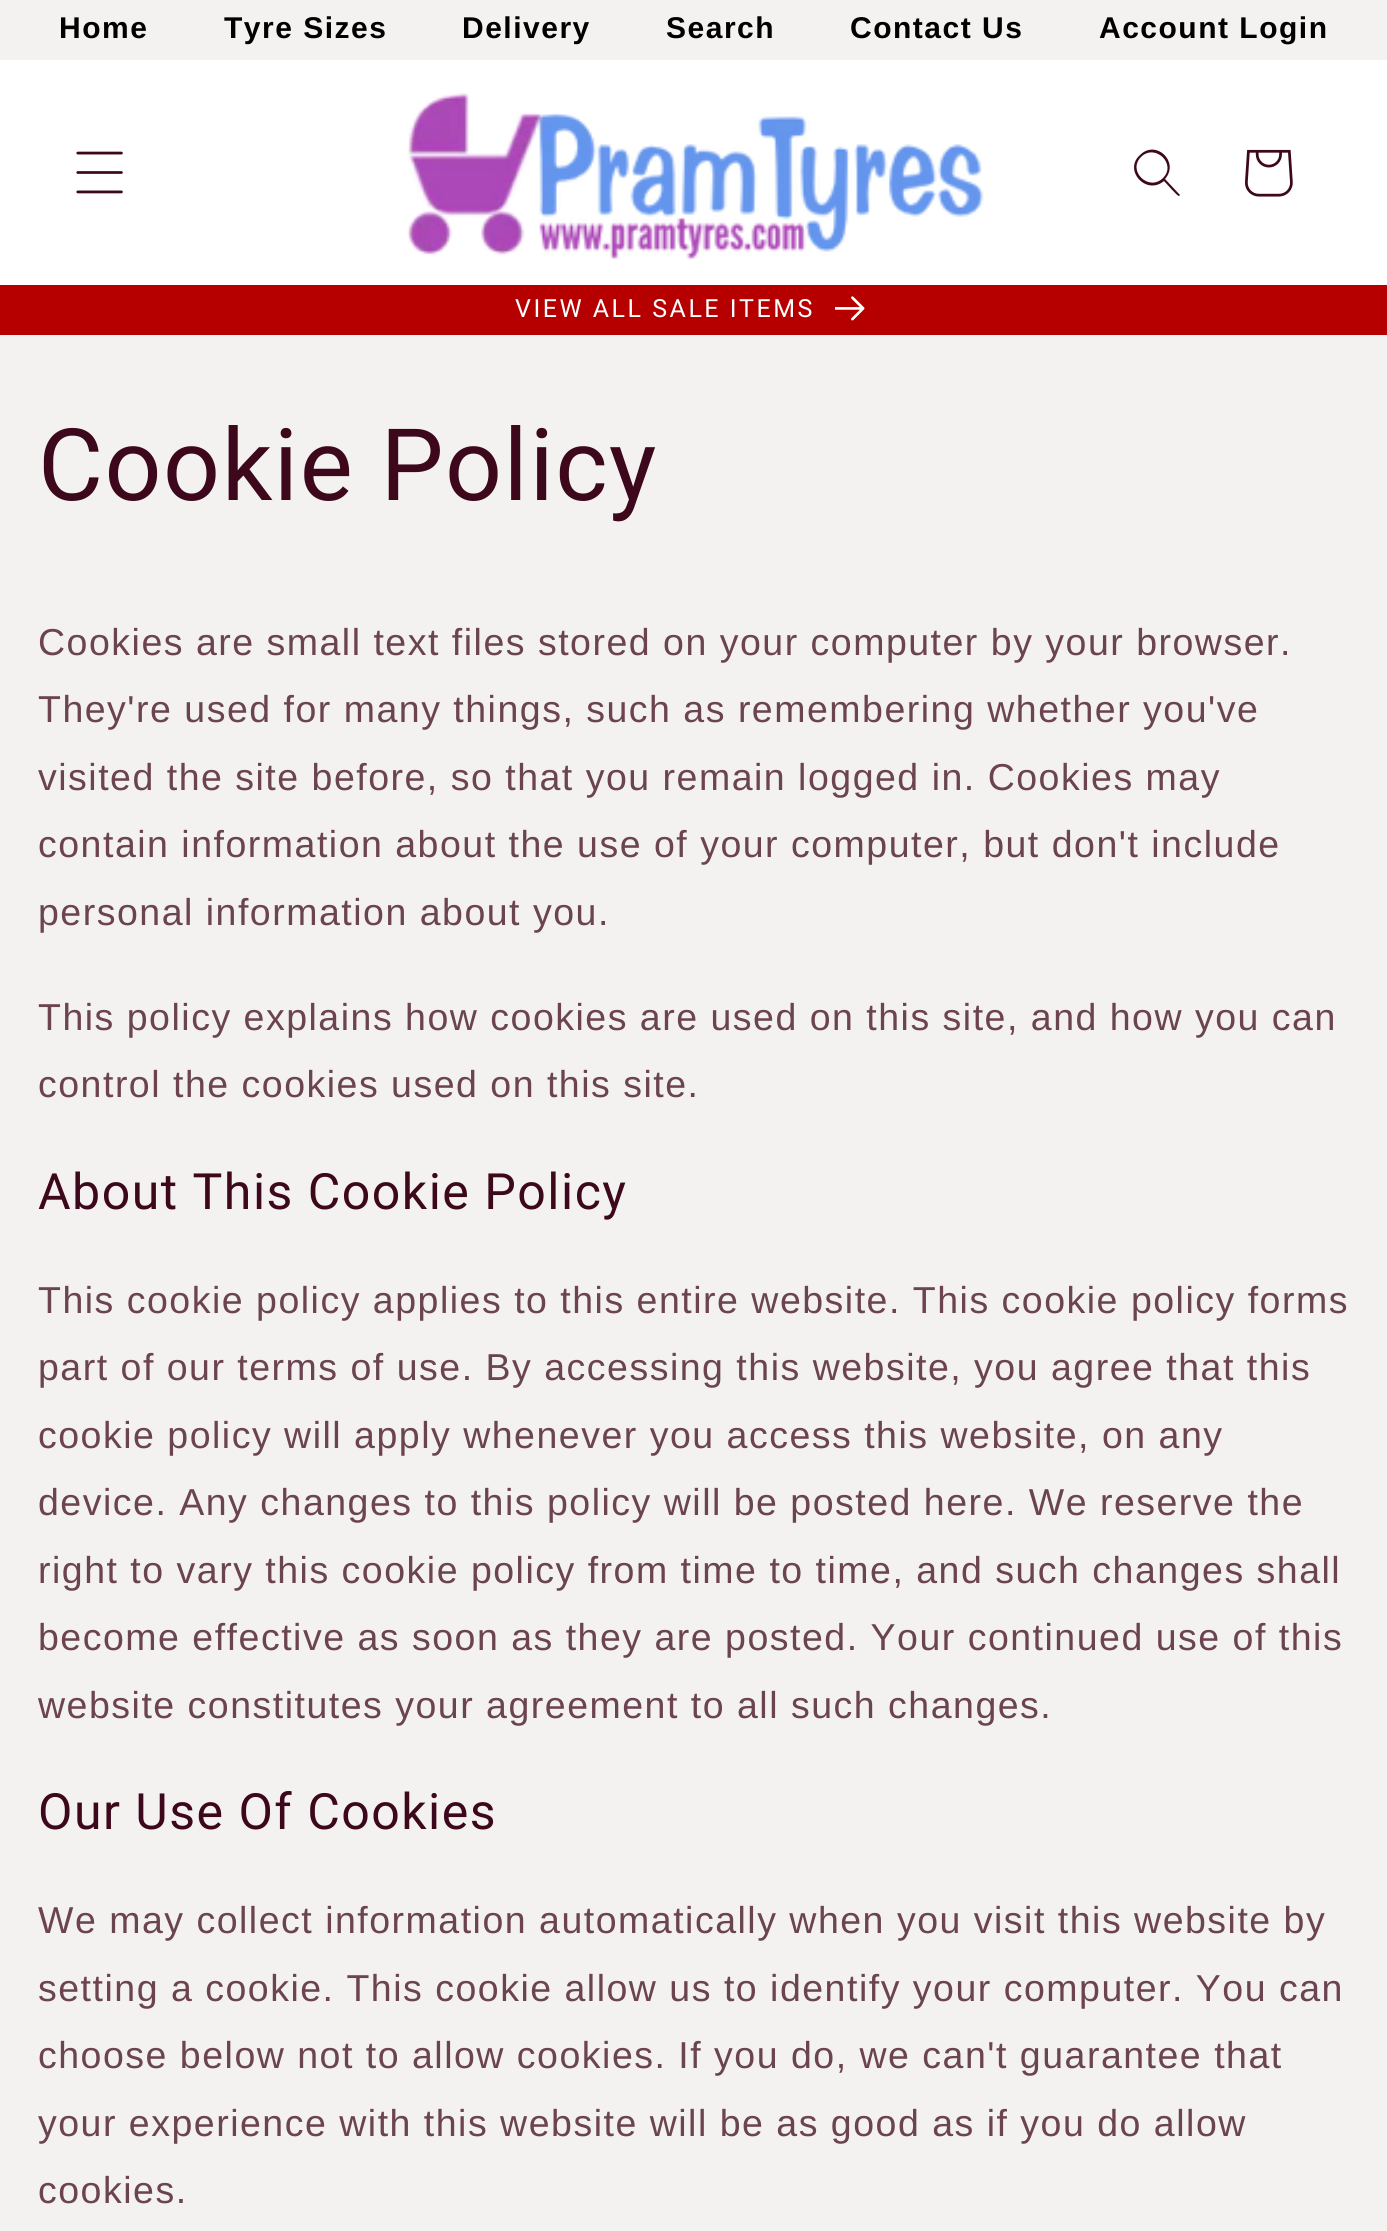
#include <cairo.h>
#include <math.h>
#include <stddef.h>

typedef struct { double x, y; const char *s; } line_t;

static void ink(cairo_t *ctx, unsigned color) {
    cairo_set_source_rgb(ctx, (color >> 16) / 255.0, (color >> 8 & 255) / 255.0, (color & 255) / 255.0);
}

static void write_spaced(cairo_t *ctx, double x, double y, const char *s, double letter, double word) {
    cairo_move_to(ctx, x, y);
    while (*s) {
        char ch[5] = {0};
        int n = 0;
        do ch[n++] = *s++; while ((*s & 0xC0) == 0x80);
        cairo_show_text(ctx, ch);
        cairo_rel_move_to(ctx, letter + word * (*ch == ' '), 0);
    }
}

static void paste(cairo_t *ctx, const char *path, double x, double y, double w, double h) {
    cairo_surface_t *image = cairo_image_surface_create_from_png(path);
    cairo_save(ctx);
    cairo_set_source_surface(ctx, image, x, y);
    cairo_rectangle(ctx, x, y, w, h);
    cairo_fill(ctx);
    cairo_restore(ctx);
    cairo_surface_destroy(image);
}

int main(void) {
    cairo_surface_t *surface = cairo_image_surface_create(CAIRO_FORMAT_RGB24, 1387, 2231);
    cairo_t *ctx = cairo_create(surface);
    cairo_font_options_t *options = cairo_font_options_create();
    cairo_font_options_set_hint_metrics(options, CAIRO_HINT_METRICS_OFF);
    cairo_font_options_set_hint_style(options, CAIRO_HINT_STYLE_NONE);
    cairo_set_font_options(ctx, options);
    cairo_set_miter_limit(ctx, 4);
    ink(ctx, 0xF3F2F1);
    cairo_paint(ctx);
    cairo_select_font_face(ctx, "Liberation Sans", CAIRO_FONT_SLANT_NORMAL, CAIRO_FONT_WEIGHT_BOLD);
    cairo_set_font_size(ctx, 30);
    ink(ctx, 0x000000);
    {
        static const line_t items[] = {
            {59, 38, "Home"},
            {224, 38, "Tyre Sizes"},
            {462, 38, "Delivery"},
            {666, 38, "Search"},
            {850, 38, "Contact Us"},
            {1099, 38, "Account Login"},
        };
        for (size_t i = 0; i < sizeof items / sizeof *items; i++) {
            write_spaced(ctx, items[i].x, items[i].y, items[i].s, 1.5, 0);
        }
    }
    ink(ctx, 0xFFFFFF);
    cairo_rectangle(ctx, 0, 60, 1387, 225);
    cairo_fill(ctx);
    paste(ctx, "media/1.png", 76, 151, 47, 43);
    paste(ctx, "media/2.png", 407, 93, 577, 167);
    ink(ctx, 0x3D081B);
    cairo_set_fill_rule(ctx, CAIRO_FILL_RULE_EVEN_ODD);
    cairo_new_path(ctx);
    cairo_move_to(ctx, 1163, 178);
    cairo_curve_to(ctx, 1149, 192, 1127, 171, 1141, 157);
    cairo_curve_to(ctx, 1155, 143, 1177, 164, 1163, 178);
    cairo_close_path(ctx);
    cairo_move_to(ctx, 1164, 181);
    cairo_curve_to(ctx, 1146, 196, 1123, 170, 1140, 155);
    cairo_curve_to(ctx, 1156, 139, 1180, 162, 1165, 179);
    cairo_line_to(ctx, 1180, 195);
    cairo_line_to(ctx, 1179, 196);
    cairo_curve_to(ctx, 1178, 197, 1166, 183, 1164, 181);
    cairo_close_path(ctx);
    cairo_fill(ctx);
    paste(ctx, "media/3.png", 1245, 149, 48, 48);
    ink(ctx, 0xB60000);
    cairo_rectangle(ctx, 0, 285, 1387, 50);
    cairo_fill(ctx);
    cairo_select_font_face(ctx, "Roboto", CAIRO_FONT_SLANT_NORMAL, CAIRO_FONT_WEIGHT_NORMAL);
    cairo_set_font_size(ctx, 25);
    ink(ctx, 0xFFFFFF);
    write_spaced(ctx, 515, 317, "VIEW ALL SALE ITEMS", 2.5, 0);
    paste(ctx, "media/4.png", 835, 296, 30, 25);
    cairo_set_font_size(ctx, 100);
    ink(ctx, 0x3D081B);
    write_spaced(ctx, 38, 500, "Cookie Policy", 1.5, 0);
    cairo_select_font_face(ctx, "Liberation Sans", CAIRO_FONT_SLANT_NORMAL, CAIRO_FONT_WEIGHT_NORMAL);
    cairo_set_font_size(ctx, 37.5);
    ink(ctx, 0x6B4351);
    {
        static const line_t items[] = {
            {38, 655, "Cookies are small text files stored on your computer by your browser."},
            {38, 722, "They're used for many things, such as remembering whether you've"},
            {38, 790, "visited the site before, so that you remain logged in. Cookies may"},
            {38, 857, "contain information about the use of your computer, but don't include"},
            {38, 925, "personal information about you."},
            {38, 1030, "This policy explains how cookies are used on this site, and how you can"},
            {38, 1097, "control the cookies used on this site."},
        };
        for (size_t i = 0; i < sizeof items / sizeof *items; i++) {
            write_spaced(ctx, items[i].x, items[i].y, items[i].s, 1.5, 0);
        }
    }
    cairo_select_font_face(ctx, "Roboto", CAIRO_FONT_SLANT_NORMAL, CAIRO_FONT_WEIGHT_NORMAL);
    cairo_set_font_size(ctx, 50);
    ink(ctx, 0x3D081B);
    write_spaced(ctx, 38, 1209, "About This Cookie Policy", 1.5, 0);
    cairo_select_font_face(ctx, "Liberation Sans", CAIRO_FONT_SLANT_NORMAL, CAIRO_FONT_WEIGHT_NORMAL);
    cairo_set_font_size(ctx, 37.5);
    ink(ctx, 0x6B4351);
    {
        static const line_t items[] = {
            {38, 1313, "This cookie policy applies to this entire website. This cookie policy forms"},
            {38, 1380, "part of our terms of use. By accessing this website, you agree that this"},
            {38, 1448, "cookie policy will apply whenever you access this website, on any"},
            {38, 1515, "device. Any changes to this policy will be posted here. We reserve the"},
            {38, 1583, "right to vary this cookie policy from time to time, and such changes shall"},
            {38, 1650, "become effective as soon as they are posted. Your continued use of this"},
            {38, 1718, "website constitutes your agreement to all such changes."},
        };
        for (size_t i = 0; i < sizeof items / sizeof *items; i++) {
            write_spaced(ctx, items[i].x, items[i].y, items[i].s, 1.5, 0);
        }
    }
    cairo_select_font_face(ctx, "Roboto", CAIRO_FONT_SLANT_NORMAL, CAIRO_FONT_WEIGHT_NORMAL);
    cairo_set_font_size(ctx, 50);
    ink(ctx, 0x3D081B);
    write_spaced(ctx, 38, 1829, "Our Use Of Cookies", 1.5, 0);
    cairo_select_font_face(ctx, "Liberation Sans", CAIRO_FONT_SLANT_NORMAL, CAIRO_FONT_WEIGHT_NORMAL);
    cairo_set_font_size(ctx, 37.5);
    ink(ctx, 0x6B4351);
    {
        static const line_t items[] = {
            {38, 1933, "We may collect information automatically when you visit this website by"},
            {38, 2001, "setting a cookie. This cookie allow us to identify your computer. You can"},
            {38, 2068, "choose below not to allow cookies. If you do, we can't guarantee that"},
            {38, 2136, "your experience with this website will be as good as if you do allow"},
            {38, 2203, "cookies."},
        };
        for (size_t i = 0; i < sizeof items / sizeof *items; i++) {
            write_spaced(ctx, items[i].x, items[i].y, items[i].s, 1.5, 0);
        }
    }
    cairo_surface_write_to_png(surface, "image.png");
    cairo_font_options_destroy(options);
    cairo_destroy(ctx);
    cairo_surface_destroy(surface);
    return 0;
}
